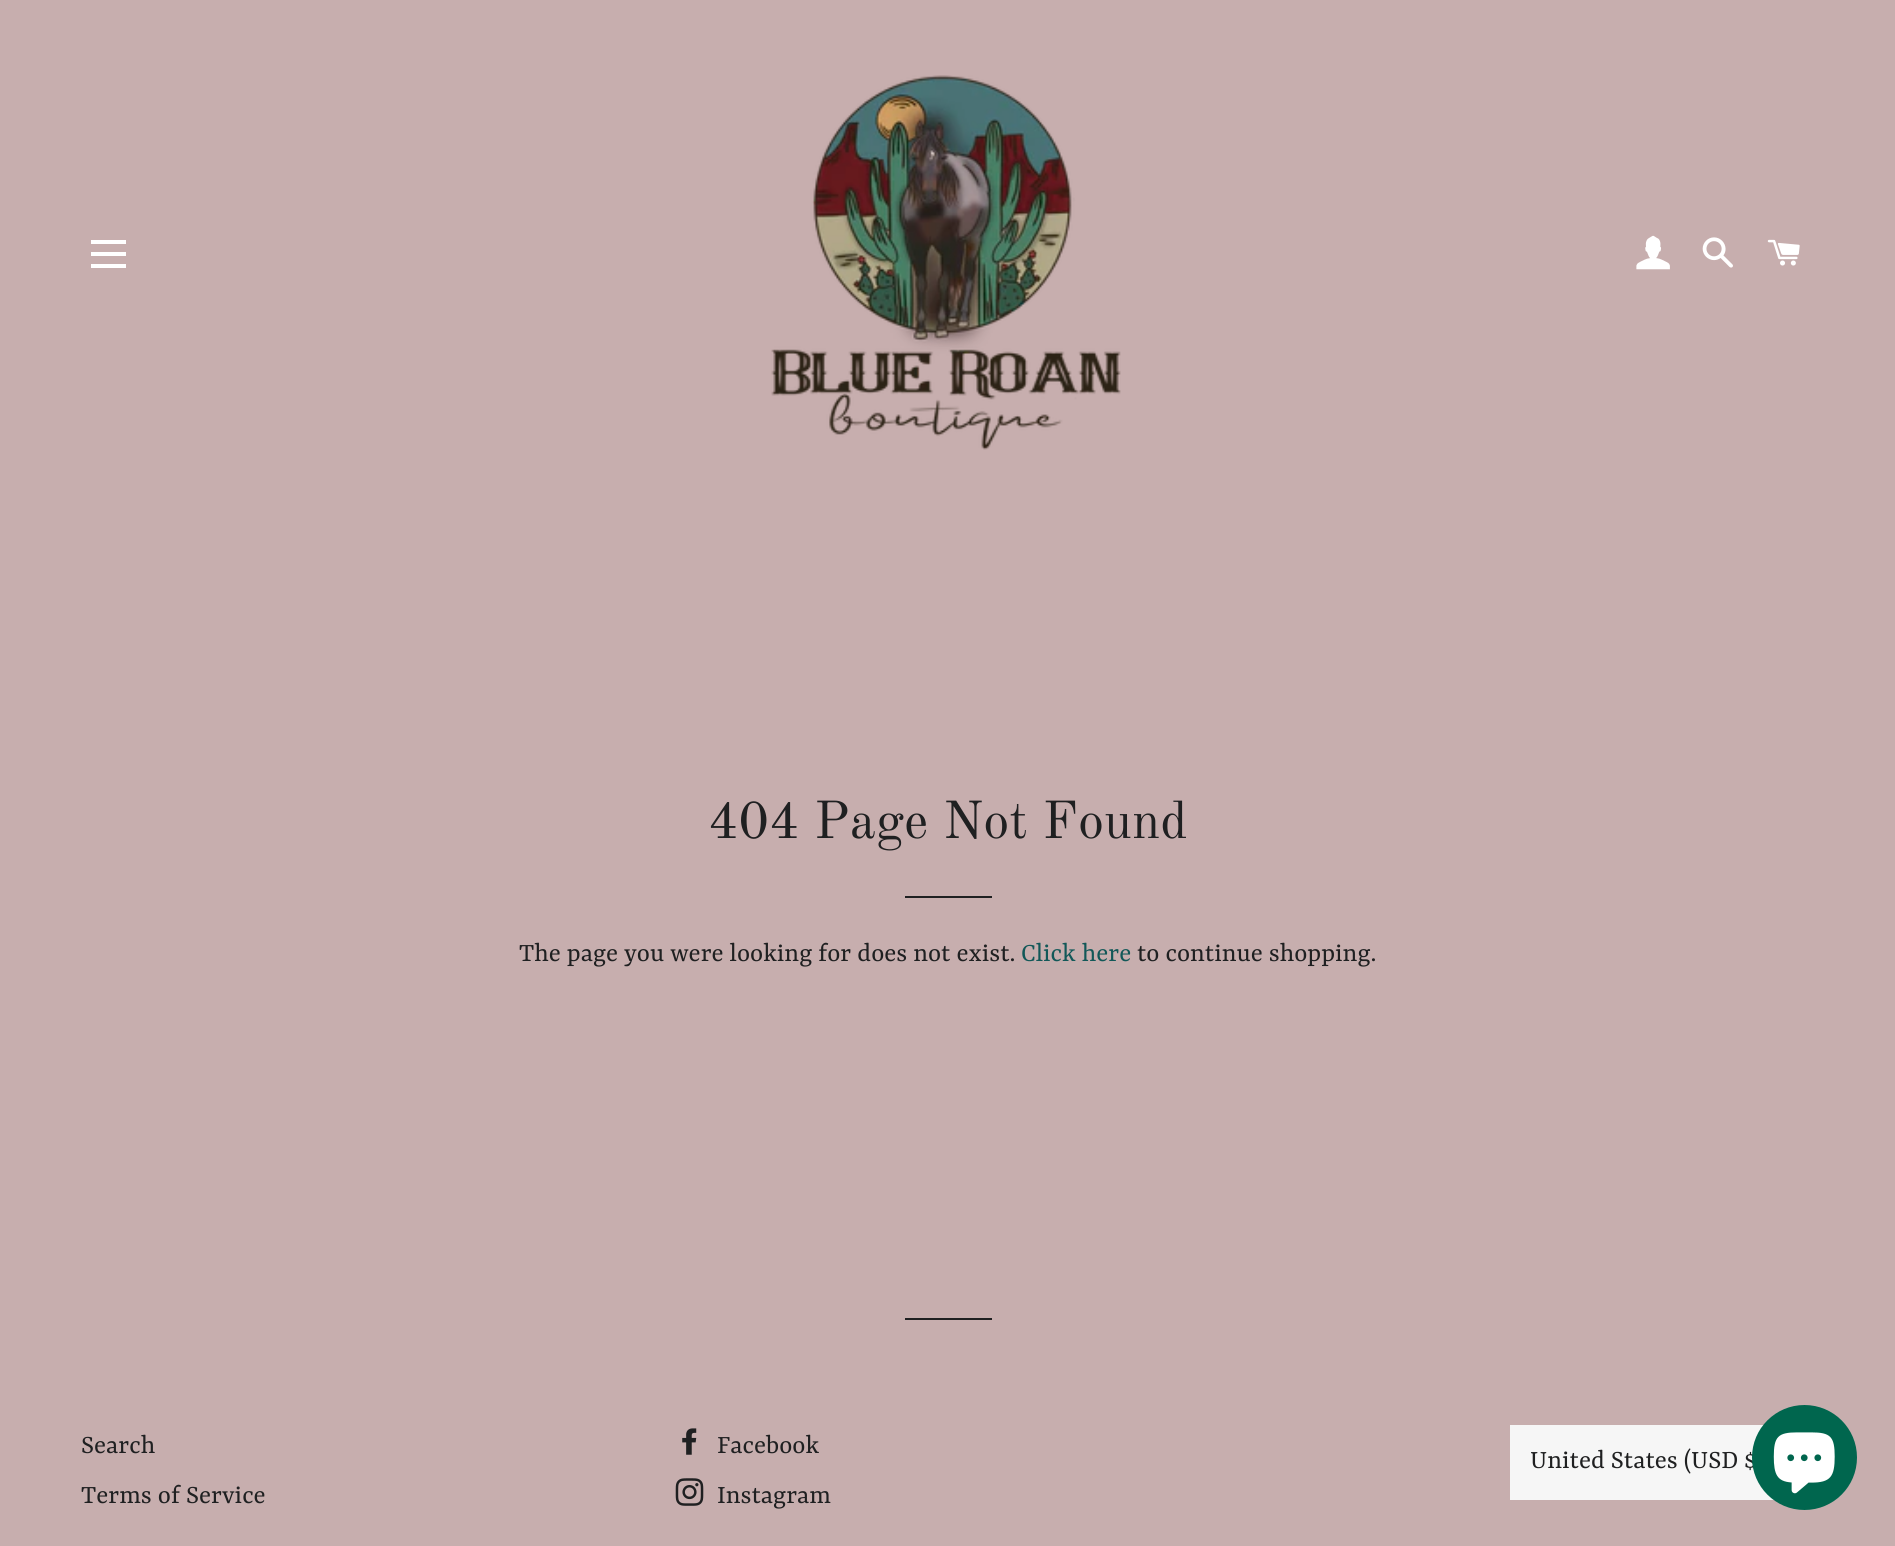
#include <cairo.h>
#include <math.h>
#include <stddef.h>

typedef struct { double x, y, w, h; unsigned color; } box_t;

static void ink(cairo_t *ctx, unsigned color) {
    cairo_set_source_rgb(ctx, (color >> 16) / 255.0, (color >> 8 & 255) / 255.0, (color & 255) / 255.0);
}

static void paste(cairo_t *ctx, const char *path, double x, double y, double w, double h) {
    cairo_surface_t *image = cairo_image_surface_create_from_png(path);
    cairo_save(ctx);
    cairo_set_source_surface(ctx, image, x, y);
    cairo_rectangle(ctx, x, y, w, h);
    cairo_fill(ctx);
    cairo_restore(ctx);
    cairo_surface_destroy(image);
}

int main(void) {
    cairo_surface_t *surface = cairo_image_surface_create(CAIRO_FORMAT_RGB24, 1895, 1546);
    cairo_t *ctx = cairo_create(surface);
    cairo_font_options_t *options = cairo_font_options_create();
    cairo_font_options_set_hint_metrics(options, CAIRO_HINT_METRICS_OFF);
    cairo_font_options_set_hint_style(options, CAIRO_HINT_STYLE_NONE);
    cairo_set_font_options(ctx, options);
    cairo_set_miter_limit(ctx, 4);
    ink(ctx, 0xC7AEAE);
    cairo_paint(ctx);
    {
        static const box_t items[] = {
            {91, 240, 35, 4, 0xFFFFFF},
            {91, 252, 35, 4, 0xFFFFFF},
            {91, 264, 35, 4, 0xFFFFFF},
        };
        for (size_t i = 0; i < sizeof items / sizeof *items; i++) {
            ink(ctx, items[i].color);
            cairo_rectangle(ctx, items[i].x, items[i].y, items[i].w, items[i].h);
            cairo_fill(ctx);
        }
    }
    paste(ctx, "media/1.png", 771, 75, 350, 375);
    paste(ctx, "media/2.png", 1636, 235, 34, 35);
    paste(ctx, "media/3.png", 1702, 237, 31, 31);
    paste(ctx, "media/4.png", 1767, 239, 33, 27);
    cairo_select_font_face(ctx, "Old Standard TT", CAIRO_FONT_SLANT_NORMAL, CAIRO_FONT_WEIGHT_NORMAL);
    cairo_set_font_size(ctx, 52.5);
    ink(ctx, 0x1F2021);
    cairo_move_to(ctx, 708, 838);
    cairo_show_text(ctx, "404 Page Not Found");
    cairo_rectangle(ctx, 905, 896, 87, 2);
    cairo_fill(ctx);
    cairo_select_font_face(ctx, "Rasa", CAIRO_FONT_SLANT_NORMAL, CAIRO_FONT_WEIGHT_NORMAL);
    cairo_set_font_size(ctx, 28);
    cairo_move_to(ctx, 519, 961);
    cairo_show_text(ctx, "The page you were looking for does not exist.");
    ink(ctx, 0x125858);
    cairo_move_to(ctx, 1021, 961);
    cairo_show_text(ctx, "Click here");
    ink(ctx, 0x1F2021);
    cairo_move_to(ctx, 1137, 961);
    cairo_show_text(ctx, "to continue shopping.");
    cairo_rectangle(ctx, 905, 1318, 87, 2);
    cairo_fill(ctx);
    cairo_move_to(ctx, 81, 1453);
    cairo_show_text(ctx, "Search");
    cairo_move_to(ctx, 81, 1503);
    cairo_show_text(ctx, "Terms of Service");
    paste(ctx, "media/5.png", 682, 1428, 15, 27);
    cairo_move_to(ctx, 717, 1453);
    cairo_show_text(ctx, "Facebook");
    paste(ctx, "media/6.png", 675, 1478, 29, 28);
    cairo_move_to(ctx, 717, 1503);
    cairo_show_text(ctx, "Instagram");
    ink(ctx, 0xF6F6F6);
    cairo_rectangle(ctx, 1510, 1425, 264, 75);
    cairo_fill(ctx);
    ink(ctx, 0x1F2021);
    cairo_move_to(ctx, 1530, 1468);
    cairo_show_text(ctx, "United States (USD $");
    ink(ctx, 0x00664E);
    cairo_new_path(ctx);
    cairo_arc(ctx, 1804.5, 1457.5, 52.5, 0, 2 * M_PI);
    cairo_fill(ctx);
    paste(ctx, "media/7.png", 1773, 1432, 62, 62);
    cairo_surface_write_to_png(surface, "image.png");
    cairo_font_options_destroy(options);
    cairo_destroy(ctx);
    cairo_surface_destroy(surface);
    return 0;
}
